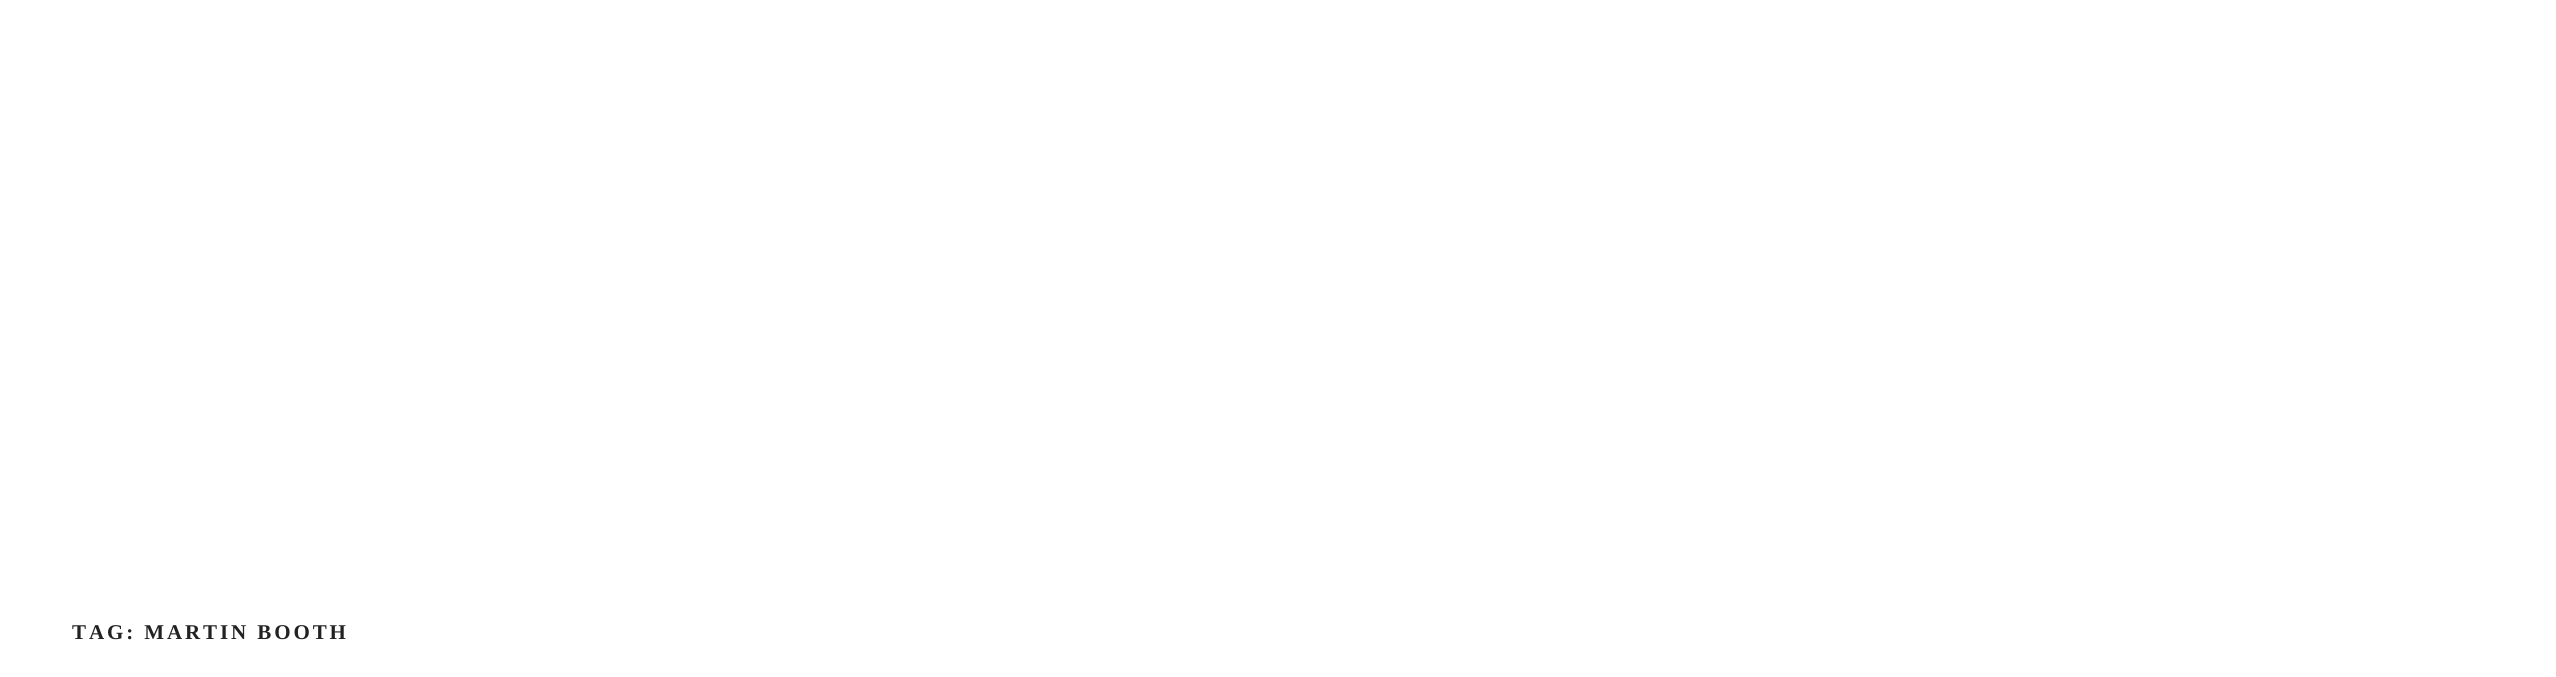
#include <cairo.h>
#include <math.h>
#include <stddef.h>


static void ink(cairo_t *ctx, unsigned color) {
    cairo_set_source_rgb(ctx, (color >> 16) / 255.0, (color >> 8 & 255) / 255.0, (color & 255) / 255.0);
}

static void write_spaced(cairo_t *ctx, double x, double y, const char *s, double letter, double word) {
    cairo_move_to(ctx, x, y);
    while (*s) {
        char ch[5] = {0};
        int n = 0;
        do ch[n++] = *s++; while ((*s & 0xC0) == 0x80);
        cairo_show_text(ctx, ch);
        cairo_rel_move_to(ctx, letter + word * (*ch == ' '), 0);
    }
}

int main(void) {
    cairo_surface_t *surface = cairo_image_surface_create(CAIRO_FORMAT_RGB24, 2556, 677);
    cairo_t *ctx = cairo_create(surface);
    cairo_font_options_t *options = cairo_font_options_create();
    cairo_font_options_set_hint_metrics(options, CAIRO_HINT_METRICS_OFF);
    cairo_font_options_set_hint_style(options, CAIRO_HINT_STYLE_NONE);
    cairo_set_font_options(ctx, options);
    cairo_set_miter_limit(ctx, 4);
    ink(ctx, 0xFFFFFF);
    cairo_paint(ctx);
    cairo_select_font_face(ctx, "Liberation Serif", CAIRO_FONT_SLANT_NORMAL, CAIRO_FONT_WEIGHT_BOLD);
    cairo_set_font_size(ctx, 21);
    ink(ctx, 0x222222);
    write_spaced(ctx, 72, 639, "TAG: MARTIN BOOTH", 2.9, 0);
    cairo_surface_write_to_png(surface, "image.png");
    cairo_font_options_destroy(options);
    cairo_destroy(ctx);
    cairo_surface_destroy(surface);
    return 0;
}
